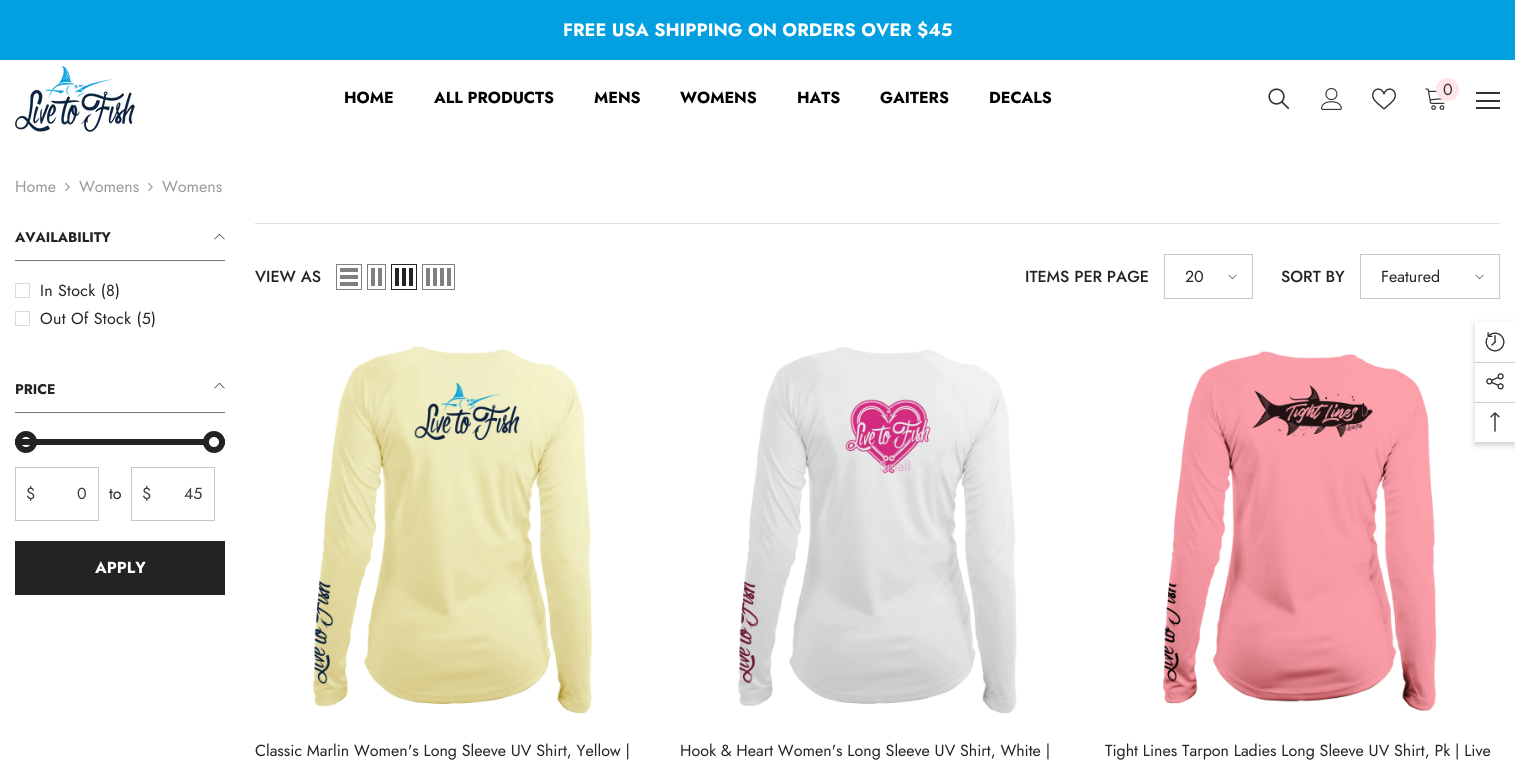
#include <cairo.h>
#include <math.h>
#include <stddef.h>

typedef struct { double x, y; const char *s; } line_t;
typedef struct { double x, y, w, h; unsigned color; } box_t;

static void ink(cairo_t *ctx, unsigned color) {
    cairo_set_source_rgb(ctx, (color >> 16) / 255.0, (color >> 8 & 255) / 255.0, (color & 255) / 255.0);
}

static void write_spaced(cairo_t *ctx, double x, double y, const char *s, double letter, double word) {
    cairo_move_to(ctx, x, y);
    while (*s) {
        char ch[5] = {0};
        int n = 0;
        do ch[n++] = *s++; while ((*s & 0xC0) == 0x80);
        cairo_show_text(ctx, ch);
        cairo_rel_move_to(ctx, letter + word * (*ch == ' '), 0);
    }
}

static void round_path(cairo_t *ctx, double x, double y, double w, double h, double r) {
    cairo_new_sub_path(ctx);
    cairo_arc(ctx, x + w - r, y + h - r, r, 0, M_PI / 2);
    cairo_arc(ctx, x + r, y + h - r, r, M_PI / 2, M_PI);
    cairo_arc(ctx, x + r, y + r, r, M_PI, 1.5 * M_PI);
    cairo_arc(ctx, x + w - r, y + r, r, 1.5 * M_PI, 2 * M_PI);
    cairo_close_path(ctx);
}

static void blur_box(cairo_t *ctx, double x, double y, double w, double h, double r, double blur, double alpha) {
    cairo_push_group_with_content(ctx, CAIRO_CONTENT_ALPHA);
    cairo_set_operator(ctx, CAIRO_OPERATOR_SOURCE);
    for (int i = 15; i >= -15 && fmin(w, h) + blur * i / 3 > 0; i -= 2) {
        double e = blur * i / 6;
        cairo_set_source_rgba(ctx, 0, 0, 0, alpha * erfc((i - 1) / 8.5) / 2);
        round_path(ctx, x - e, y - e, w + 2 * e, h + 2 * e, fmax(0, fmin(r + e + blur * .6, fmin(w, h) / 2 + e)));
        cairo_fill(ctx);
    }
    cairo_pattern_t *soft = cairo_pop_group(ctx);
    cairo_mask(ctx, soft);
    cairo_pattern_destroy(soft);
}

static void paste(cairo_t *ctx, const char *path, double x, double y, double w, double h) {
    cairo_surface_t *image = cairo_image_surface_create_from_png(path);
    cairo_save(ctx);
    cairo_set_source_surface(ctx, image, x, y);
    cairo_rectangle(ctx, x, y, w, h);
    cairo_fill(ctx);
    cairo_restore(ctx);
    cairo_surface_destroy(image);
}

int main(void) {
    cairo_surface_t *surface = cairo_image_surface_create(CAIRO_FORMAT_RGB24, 1515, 763);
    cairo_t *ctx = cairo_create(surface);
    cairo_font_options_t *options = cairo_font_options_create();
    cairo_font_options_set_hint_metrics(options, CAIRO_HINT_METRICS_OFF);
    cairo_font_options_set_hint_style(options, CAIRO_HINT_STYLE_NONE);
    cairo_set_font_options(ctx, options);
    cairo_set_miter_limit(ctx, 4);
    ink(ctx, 0xFFFFFF);
    cairo_paint(ctx);
    ink(ctx, 0x03A0E1);
    cairo_rectangle(ctx, 0, 0, 1515, 60);
    cairo_fill(ctx);
    cairo_select_font_face(ctx, "Jost", CAIRO_FONT_SLANT_NORMAL, CAIRO_FONT_WEIGHT_BOLD);
    cairo_set_font_size(ctx, 18);
    ink(ctx, 0xFFFFFF);
    cairo_move_to(ctx, 563, 36);
    cairo_show_text(ctx, "FREE USA SHIPPING ON ORDERS OVER $45");
    paste(ctx, "media/1.png", 15, 66, 120, 66);
    paste(ctx, "media/2.png", 1268, 88, 22, 22);
    paste(ctx, "media/3.png", 1321, 88, 21, 22);
    paste(ctx, "media/4.png", 1372, 88, 24, 22);
    paste(ctx, "media/5.png", 1425, 88, 20, 22);
    ink(ctx, 0xFFE5E8);
    cairo_arc(ctx, 1447.5, 89.5, 11.5, 0, 2 * M_PI);
    cairo_fill(ctx);
    cairo_select_font_face(ctx, "Jost", CAIRO_FONT_SLANT_NORMAL, CAIRO_FONT_WEIGHT_NORMAL);
    cairo_set_font_size(ctx, 16);
    ink(ctx, 0x323232);
    cairo_move_to(ctx, 1443, 95);
    cairo_show_text(ctx, "0");
    {
        static const box_t items[] = {
            {1476, 92, 24, 2, 0x323232},
            {1476, 100, 24, 2, 0x323232},
            {1476, 107, 24, 2, 0x323232},
        };
        for (size_t i = 0; i < sizeof items / sizeof *items; i++) {
            ink(ctx, items[i].color);
            cairo_rectangle(ctx, items[i].x, items[i].y, items[i].w, items[i].h);
            cairo_fill(ctx);
        }
    }
    cairo_select_font_face(ctx, "Jost", CAIRO_FONT_SLANT_NORMAL, CAIRO_FONT_WEIGHT_BOLD);
    ink(ctx, 0x000000);
    {
        static const line_t items[] = {
            {344, 103, "HOME"},
            {434, 103, "ALL PRODUCTS"},
            {594, 103, "MENS"},
            {680, 103, "WOMENS"},
            {797, 103, "HATS"},
            {880, 103, "GAITERS"},
            {989, 103, "DECALS"},
        };
        for (size_t i = 0; i < sizeof items / sizeof *items; i++) {
            cairo_move_to(ctx, items[i].x, items[i].y);
            cairo_show_text(ctx, items[i].s);
        }
    }
    cairo_select_font_face(ctx, "Jost", CAIRO_FONT_SLANT_NORMAL, CAIRO_FONT_WEIGHT_NORMAL);
    ink(ctx, 0x999999);
    cairo_move_to(ctx, 15, 192);
    cairo_show_text(ctx, "Home");
    paste(ctx, "media/6.png", 65, 182, 5, 10);
    cairo_move_to(ctx, 79, 192);
    cairo_show_text(ctx, "Womens");
    paste(ctx, "media/6.png", 148, 182, 5, 10);
    cairo_move_to(ctx, 162, 192);
    cairo_show_text(ctx, "Womens");
    ink(ctx, 0x787878);
    cairo_rectangle(ctx, 15, 260, 210, 1);
    cairo_fill(ctx);
    cairo_select_font_face(ctx, "Jost", CAIRO_FONT_SLANT_NORMAL, CAIRO_FONT_WEIGHT_BOLD);
    cairo_set_font_size(ctx, 14);
    ink(ctx, 0x232323);
    cairo_move_to(ctx, 15, 242);
    cairo_show_text(ctx, "AVAILABILITY");
    paste(ctx, "media/7.png", 214, 234, 11, 6);
    cairo_rectangle(ctx, 15.5, 283.5, 14, 14);
    ink(ctx, 0xDBDBDB);
    cairo_set_line_width(ctx, 1);
    cairo_stroke(ctx);
    cairo_select_font_face(ctx, "Jost", CAIRO_FONT_SLANT_NORMAL, CAIRO_FONT_WEIGHT_NORMAL);
    cairo_set_font_size(ctx, 16);
    ink(ctx, 0x232323);
    write_spaced(ctx, 40, 296, "In Stock (8)", 0.3, 0);
    cairo_rectangle(ctx, 15.5, 311.5, 14, 14);
    ink(ctx, 0xDBDBDB);
    cairo_stroke(ctx);
    ink(ctx, 0x232323);
    write_spaced(ctx, 40, 324, "Out Of Stock (5)", 0.3, 0);
    ink(ctx, 0x787878);
    cairo_rectangle(ctx, 15, 412, 210, 1);
    cairo_fill(ctx);
    cairo_select_font_face(ctx, "Jost", CAIRO_FONT_SLANT_NORMAL, CAIRO_FONT_WEIGHT_BOLD);
    cairo_set_font_size(ctx, 14);
    ink(ctx, 0x232323);
    cairo_move_to(ctx, 15, 394);
    cairo_show_text(ctx, "PRICE");
    paste(ctx, "media/7.png", 214, 383, 11, 6);
    cairo_arc(ctx, 26, 442, 8, 0, 2 * M_PI);
    cairo_set_line_width(ctx, 6);
    cairo_stroke(ctx);
    round_path(ctx, 15, 439, 210, 6, 1);
    cairo_fill(ctx);
    ink(ctx, 0xFFFFFF);
    cairo_arc(ctx, 214, 442, 8, 0, 2 * M_PI);
    cairo_fill_preserve(ctx);
    ink(ctx, 0x232323);
    cairo_stroke(ctx);
    cairo_rectangle(ctx, 15.5, 467.5, 83, 53);
    ink(ctx, 0xC7C7C7);
    cairo_set_line_width(ctx, 1);
    cairo_stroke(ctx);
    cairo_select_font_face(ctx, "Jost", CAIRO_FONT_SLANT_NORMAL, CAIRO_FONT_WEIGHT_NORMAL);
    cairo_set_font_size(ctx, 16);
    ink(ctx, 0x3C3C3C);
    cairo_move_to(ctx, 26, 499);
    cairo_show_text(ctx, "$");
    cairo_move_to(ctx, 77, 499);
    cairo_show_text(ctx, "0");
    ink(ctx, 0x232323);
    cairo_move_to(ctx, 109, 499);
    cairo_show_text(ctx, "to");
    cairo_rectangle(ctx, 131.5, 467.5, 83, 53);
    ink(ctx, 0xC7C7C7);
    cairo_stroke(ctx);
    ink(ctx, 0x3C3C3C);
    cairo_move_to(ctx, 142, 499);
    cairo_show_text(ctx, "$");
    cairo_move_to(ctx, 184, 499);
    cairo_show_text(ctx, "45");
    ink(ctx, 0x232323);
    cairo_rectangle(ctx, 15, 541, 210, 54);
    cairo_fill(ctx);
    cairo_select_font_face(ctx, "Jost", CAIRO_FONT_SLANT_NORMAL, CAIRO_FONT_WEIGHT_BOLD);
    ink(ctx, 0xFFFFFF);
    cairo_move_to(ctx, 95, 573);
    cairo_show_text(ctx, "APPLY");
    ink(ctx, 0xDEDEDE);
    cairo_rectangle(ctx, 255, 223, 1245, 1);
    cairo_fill(ctx);
    cairo_select_font_face(ctx, "Jost Medium", CAIRO_FONT_SLANT_NORMAL, CAIRO_FONT_WEIGHT_NORMAL);
    ink(ctx, 0x232323);
    cairo_move_to(ctx, 255, 282);
    cairo_show_text(ctx, "VIEW AS");
    cairo_rectangle(ctx, 336.5, 264.5, 25, 25);
    ink(ctx, 0x808080);
    cairo_stroke(ctx);
    {
        static const box_t items[] = {
            {340, 282, 18, 4, 0x808080},
            {340, 275, 18, 4, 0x808080},
            {340, 268, 18, 4, 0x808080},
        };
        for (size_t i = 0; i < sizeof items / sizeof *items; i++) {
            ink(ctx, items[i].color);
            cairo_rectangle(ctx, items[i].x, items[i].y, items[i].w, items[i].h);
            cairo_fill(ctx);
        }
    }
    cairo_rectangle(ctx, 367.5, 264.5, 18, 25);
    cairo_stroke(ctx);
    cairo_rectangle(ctx, 378, 268, 4, 18);
    cairo_fill(ctx);
    cairo_rectangle(ctx, 371, 268, 4, 18);
    cairo_fill(ctx);
    cairo_rectangle(ctx, 391.5, 264.5, 25, 25);
    ink(ctx, 0x232323);
    cairo_stroke(ctx);
    {
        static const box_t items[] = {
            {409, 268, 4, 18, 0x232323},
            {402, 268, 4, 18, 0x232323},
            {395, 268, 4, 18, 0x232323},
        };
        for (size_t i = 0; i < sizeof items / sizeof *items; i++) {
            ink(ctx, items[i].color);
            cairo_rectangle(ctx, items[i].x, items[i].y, items[i].w, items[i].h);
            cairo_fill(ctx);
        }
    }
    cairo_rectangle(ctx, 422.5, 264.5, 32, 25);
    ink(ctx, 0x808080);
    cairo_stroke(ctx);
    {
        static const box_t items[] = {
            {447, 268, 4, 18, 0x808080},
            {440, 268, 4, 18, 0x808080},
            {433, 268, 4, 18, 0x808080},
            {426, 268, 4, 18, 0x808080},
        };
        for (size_t i = 0; i < sizeof items / sizeof *items; i++) {
            ink(ctx, items[i].color);
            cairo_rectangle(ctx, items[i].x, items[i].y, items[i].w, items[i].h);
            cairo_fill(ctx);
        }
    }
    ink(ctx, 0x232323);
    cairo_move_to(ctx, 1025, 282);
    cairo_show_text(ctx, "ITEMS PER PAGE");
    cairo_rectangle(ctx, 1164.5, 254.5, 88, 44);
    ink(ctx, 0xC7C7C7);
    cairo_stroke(ctx);
    cairo_select_font_face(ctx, "Jost", CAIRO_FONT_SLANT_NORMAL, CAIRO_FONT_WEIGHT_NORMAL);
    ink(ctx, 0x232323);
    cairo_move_to(ctx, 1185, 282);
    cairo_show_text(ctx, "20");
    paste(ctx, "media/8.png", 1228, 275, 9, 5);
    cairo_select_font_face(ctx, "Jost Medium", CAIRO_FONT_SLANT_NORMAL, CAIRO_FONT_WEIGHT_NORMAL);
    cairo_move_to(ctx, 1281, 282);
    cairo_show_text(ctx, "SORT BY");
    cairo_rectangle(ctx, 1360.5, 254.5, 139, 44);
    ink(ctx, 0xC7C7C7);
    cairo_stroke(ctx);
    cairo_select_font_face(ctx, "Jost", CAIRO_FONT_SLANT_NORMAL, CAIRO_FONT_WEIGHT_NORMAL);
    ink(ctx, 0x232323);
    cairo_move_to(ctx, 1381, 282);
    cairo_show_text(ctx, "Featured");
    paste(ctx, "media/8.png", 1475, 275, 9, 5);
    paste(ctx, "media/9.png", 313, 346, 280, 368);
    cairo_move_to(ctx, 255, 756);
    cairo_show_text(ctx, "Classic Marlin Women's Long Sleeve UV Shirt, Yellow |");
    paste(ctx, "media/10.png", 738, 346, 279, 367);
    cairo_set_font_size(ctx, 14);
    ink(ctx, 0xDDAFC7);
    cairo_move_to(ctx, 879, 471);
    cairo_show_text(ctx, "Small");
    cairo_set_font_size(ctx, 16);
    ink(ctx, 0x232323);
    cairo_move_to(ctx, 680, 756);
    cairo_show_text(ctx, "Hook & Heart Women's Long Sleeve UV Shirt, White |");
    paste(ctx, "media/11.png", 1163, 351, 274, 360);
    cairo_move_to(ctx, 1105, 756);
    cairo_show_text(ctx, "Tight Lines Tarpon Ladies Long Sleeve UV Shirt, Pk | Live");
    cairo_save(ctx);
    cairo_set_fill_rule(ctx, CAIRO_FILL_RULE_EVEN_ODD);
    cairo_new_path(ctx);
    cairo_move_to(ctx, 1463, 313);
    cairo_line_to(ctx, 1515, 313);
    cairo_line_to(ctx, 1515, 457);
    cairo_line_to(ctx, 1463, 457);
    cairo_close_path(ctx);
    cairo_move_to(ctx, 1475, 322);
    cairo_line_to(ctx, 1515, 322);
    cairo_line_to(ctx, 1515, 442);
    cairo_line_to(ctx, 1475, 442);
    cairo_close_path(ctx);
    cairo_clip(ctx);
    ink(ctx, 0x000000);
    blur_box(ctx, 1475, 325, 40, 120, 0, 3.5, 0.2);
    cairo_restore(ctx);
    paste(ctx, "media/12.png", 1485, 332, 20, 20);
    ink(ctx, 0xCCCCCC);
    cairo_rectangle(ctx, 1475, 362, 40, 1);
    cairo_fill(ctx);
    paste(ctx, "media/13.png", 1486, 373, 18, 17);
    cairo_rectangle(ctx, 1475, 402, 40, 1);
    cairo_fill(ctx);
    paste(ctx, "media/14.png", 1490, 412, 10, 20);
    cairo_surface_write_to_png(surface, "image.png");
    cairo_font_options_destroy(options);
    cairo_destroy(ctx);
    cairo_surface_destroy(surface);
    return 0;
}
